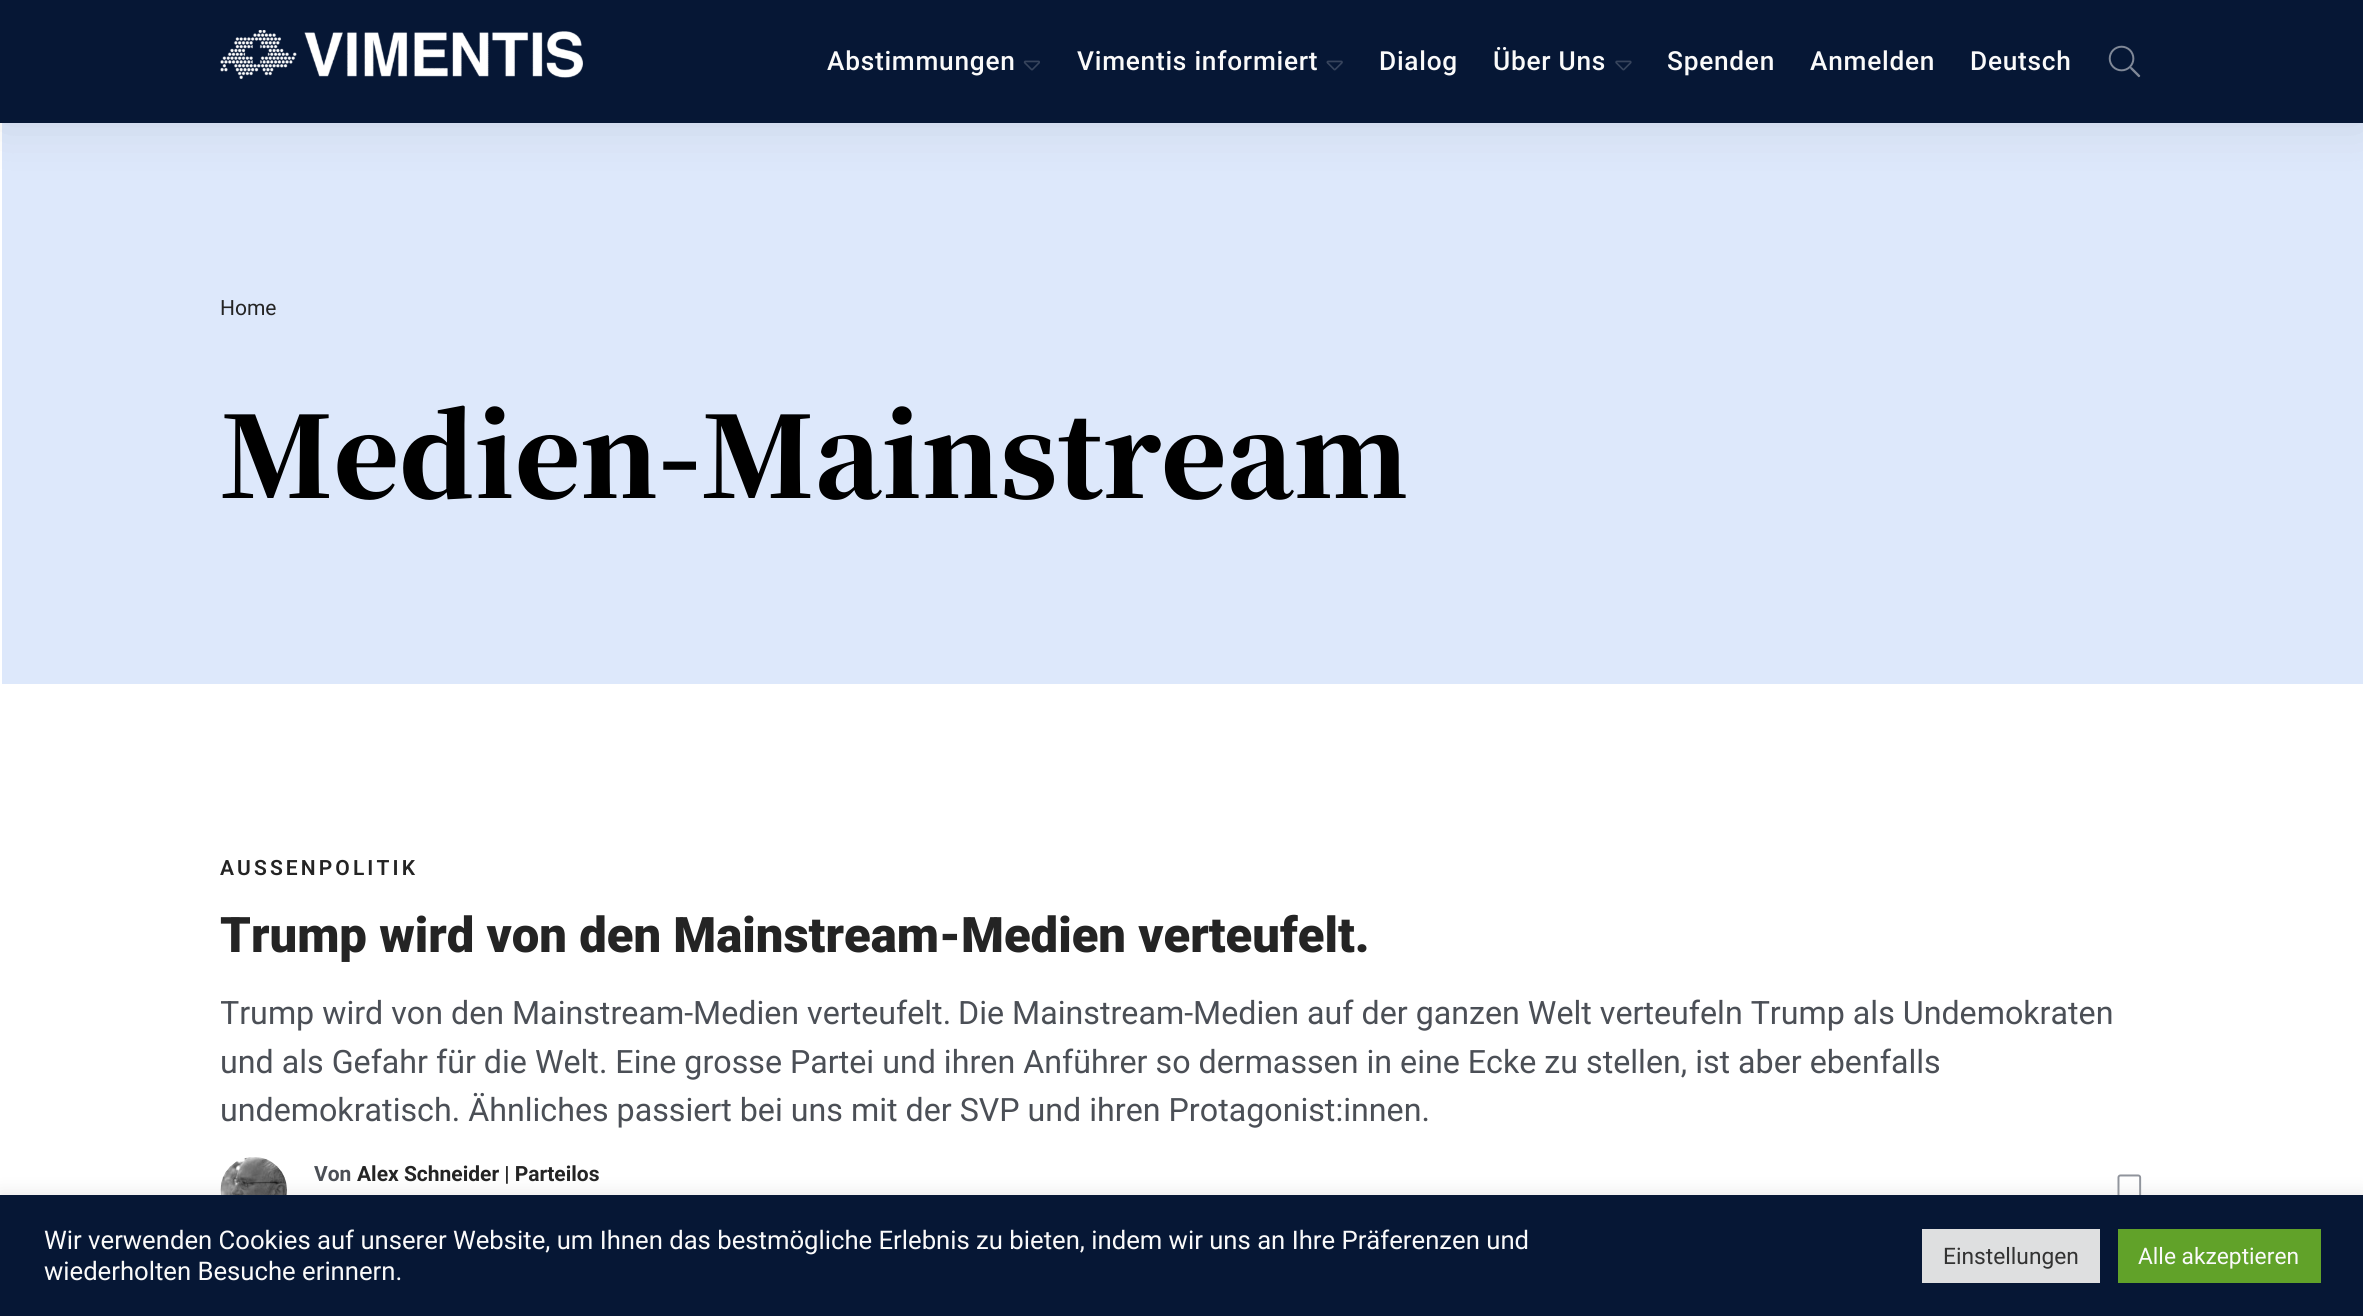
#include <cairo.h>
#include <math.h>
#include <stddef.h>

typedef struct { double x, y; const char *s; } line_t;

static void ink(cairo_t *ctx, unsigned color) {
    cairo_set_source_rgb(ctx, (color >> 16) / 255.0, (color >> 8 & 255) / 255.0, (color & 255) / 255.0);
}

static void write_spaced(cairo_t *ctx, double x, double y, const char *s, double letter, double word) {
    cairo_move_to(ctx, x, y);
    while (*s) {
        char ch[5] = {0};
        int n = 0;
        do ch[n++] = *s++; while ((*s & 0xC0) == 0x80);
        cairo_show_text(ctx, ch);
        cairo_rel_move_to(ctx, letter + word * (*ch == ' '), 0);
    }
}

static void round_path(cairo_t *ctx, double x, double y, double w, double h, double r) {
    cairo_new_sub_path(ctx);
    cairo_arc(ctx, x + w - r, y + h - r, r, 0, M_PI / 2);
    cairo_arc(ctx, x + r, y + h - r, r, M_PI / 2, M_PI);
    cairo_arc(ctx, x + r, y + r, r, M_PI, 1.5 * M_PI);
    cairo_arc(ctx, x + w - r, y + r, r, 1.5 * M_PI, 2 * M_PI);
    cairo_close_path(ctx);
}

static void blur_box(cairo_t *ctx, double x, double y, double w, double h, double r, double blur, double alpha) {
    cairo_push_group_with_content(ctx, CAIRO_CONTENT_ALPHA);
    cairo_set_operator(ctx, CAIRO_OPERATOR_SOURCE);
    for (int i = 15; i >= -15 && fmin(w, h) + blur * i / 3 > 0; i -= 2) {
        double e = blur * i / 6;
        cairo_set_source_rgba(ctx, 0, 0, 0, alpha * erfc((i - 1) / 8.5) / 2);
        round_path(ctx, x - e, y - e, w + 2 * e, h + 2 * e, fmax(0, fmin(r + e + blur * .6, fmin(w, h) / 2 + e)));
        cairo_fill(ctx);
    }
    cairo_pattern_t *soft = cairo_pop_group(ctx);
    cairo_mask(ctx, soft);
    cairo_pattern_destroy(soft);
}

static void paste(cairo_t *ctx, const char *path, double x, double y, double w, double h) {
    cairo_surface_t *image = cairo_image_surface_create_from_png(path);
    cairo_save(ctx);
    cairo_set_source_surface(ctx, image, x, y);
    cairo_rectangle(ctx, x, y, w, h);
    cairo_fill(ctx);
    cairo_restore(ctx);
    cairo_surface_destroy(image);
}

int main(void) {
    cairo_surface_t *surface = cairo_image_surface_create(CAIRO_FORMAT_RGB24, 2363, 1316);
    cairo_t *ctx = cairo_create(surface);
    cairo_font_options_t *options = cairo_font_options_create();
    cairo_font_options_set_hint_metrics(options, CAIRO_HINT_METRICS_OFF);
    cairo_font_options_set_hint_style(options, CAIRO_HINT_STYLE_NONE);
    cairo_set_font_options(ctx, options);
    cairo_set_miter_limit(ctx, 4);
    ink(ctx, 0xFFFFFF);
    cairo_paint(ctx);
    ink(ctx, 0xDDE8FB);
    cairo_rectangle(ctx, 2, 123, 2361, 561);
    cairo_fill(ctx);
    ink(ctx, 0x000000);
    blur_box(ctx, 0, 0, 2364, 123, 0, 26, 0.1);
    ink(ctx, 0x061735);
    cairo_rectangle(ctx, 0, 0, 2363, 123);
    cairo_fill(ctx);
    paste(ctx, "media/1.png", 220, 30, 363, 49);
    cairo_select_font_face(ctx, "Roboto Medium", CAIRO_FONT_SLANT_NORMAL, CAIRO_FONT_WEIGHT_NORMAL);
    cairo_set_font_size(ctx, 26.25);
    ink(ctx, 0xFAFAFA);
    write_spaced(ctx, 827, 70, "Abstimmungen", 0.75, 0);
    paste(ctx, "media/2.png", 1023, 60, 17, 11);
    write_spaced(ctx, 1077, 70, "Vimentis informiert", 0.75, 0);
    paste(ctx, "media/3.png", 1326, 60, 17, 11);
    write_spaced(ctx, 1379, 70, "Dialog", 0.75, 0);
    write_spaced(ctx, 1493, 70, "Über Uns", 0.75, 0);
    paste(ctx, "media/4.png", 1615, 60, 17, 11);
    {
        static const line_t items[] = {
            {1667, 70, "Spenden"},
            {1810, 70, "Anmelden"},
            {1970, 70, "Deutsch"},
        };
        for (size_t i = 0; i < sizeof items / sizeof *items; i++) {
            write_spaced(ctx, items[i].x, items[i].y, items[i].s, 0.75, 0);
        }
    }
    paste(ctx, "media/5.png", 2108, 45, 33, 33);
    cairo_select_font_face(ctx, "Roboto", CAIRO_FONT_SLANT_NORMAL, CAIRO_FONT_WEIGHT_NORMAL);
    cairo_set_font_size(ctx, 21);
    ink(ctx, 0x242424);
    cairo_move_to(ctx, 220, 315);
    cairo_show_text(ctx, "Home");
    cairo_select_font_face(ctx, "Noto Serif JP Black", CAIRO_FONT_SLANT_NORMAL, CAIRO_FONT_WEIGHT_NORMAL);
    cairo_set_font_size(ctx, 112);
    ink(ctx, 0x000000);
    cairo_move_to(ctx, 220, 498);
    cairo_show_text(ctx, "Medien-Mainstream");
    cairo_select_font_face(ctx, "Roboto SemiBold", CAIRO_FONT_SLANT_NORMAL, CAIRO_FONT_WEIGHT_NORMAL);
    cairo_set_font_size(ctx, 21);
    ink(ctx, 0x242424);
    write_spaced(ctx, 220, 875, "AUSSENPOLITIK", 3.1, 0);
    cairo_select_font_face(ctx, "Roboto Black", CAIRO_FONT_SLANT_NORMAL, CAIRO_FONT_WEIGHT_NORMAL);
    cairo_set_font_size(ctx, 49);
    cairo_move_to(ctx, 220, 952);
    cairo_show_text(ctx, "Trump wird von den Mainstream-Medien verteufelt.");
    cairo_save(ctx);
    cairo_rectangle(ctx, 221, 989, 1925, 145);
    cairo_clip(ctx);
    cairo_select_font_face(ctx, "Roboto", CAIRO_FONT_SLANT_NORMAL, CAIRO_FONT_WEIGHT_NORMAL);
    cairo_set_font_size(ctx, 32.2);
    ink(ctx, 0x4B4F56);
    cairo_move_to(ctx, 220, 1024);
    cairo_show_text(ctx, "Trump wird von den Mainstream-Medien verteufelt.");
    cairo_restore(ctx);
    cairo_select_font_face(ctx, "Roboto", CAIRO_FONT_SLANT_NORMAL, CAIRO_FONT_WEIGHT_NORMAL);
    cairo_set_font_size(ctx, 32.2);
    ink(ctx, 0x4B4F56);
    {
        static const line_t items[] = {
            {958, 1024, "Die Mainstream-Medien auf der ganzen Welt verteufeln Trump als Undemokraten"},
            {220, 1073, "und als Gefahr für die Welt. Eine grosse Partei und ihren Anführer so dermassen in eine Ecke zu stellen, ist aber ebenfalls"},
            {220, 1121, "undemokratisch. Ähnliches passiert bei uns mit der SVP und ihren Protagonist:innen."},
        };
        for (size_t i = 0; i < sizeof items / sizeof *items; i++) {
            cairo_move_to(ctx, items[i].x, items[i].y);
            cairo_show_text(ctx, items[i].s);
        }
    }
    ink(ctx, 0xFAFAFA);
    cairo_new_path(ctx);
    cairo_arc(ctx, 254, 1190, 33, 0, 2 * M_PI);
    cairo_fill(ctx);
    paste(ctx, "media/6.png", 220, 1157, 67, 38);
    cairo_select_font_face(ctx, "Roboto", CAIRO_FONT_SLANT_NORMAL, CAIRO_FONT_WEIGHT_BOLD);
    cairo_set_font_size(ctx, 21);
    ink(ctx, 0x4B4F56);
    cairo_move_to(ctx, 314, 1181);
    cairo_show_text(ctx, "Von");
    ink(ctx, 0x242424);
    cairo_move_to(ctx, 357, 1181);
    cairo_show_text(ctx, "Alex Schneider | Parteilos");
    paste(ctx, "media/7.png", 2117, 1174, 25, 21);
    ink(ctx, 0xACABAB);
    blur_box(ctx, 0, 1194, 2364, 120, 0, 9, 0.3);
    ink(ctx, 0x061735);
    cairo_rectangle(ctx, 0, 1195, 2363, 121);
    cairo_fill(ctx);
    cairo_select_font_face(ctx, "Roboto", CAIRO_FONT_SLANT_NORMAL, CAIRO_FONT_WEIGHT_NORMAL);
    cairo_set_font_size(ctx, 25.67);
    ink(ctx, 0xFAFAFA);
    cairo_move_to(ctx, 44, 1249);
    cairo_show_text(ctx, "Wir verwenden Cookies auf unserer Website, um Ihnen das bestmögliche Erlebnis zu bieten, indem wir uns an Ihre Präferenzen und");
    cairo_move_to(ctx, 44, 1280);
    cairo_show_text(ctx, "wiederholten Besuche erinnern.");
    ink(ctx, 0xDEDFE0);
    cairo_rectangle(ctx, 1922, 1229, 178, 54);
    cairo_fill(ctx);
    cairo_set_font_size(ctx, 22.75);
    ink(ctx, 0x333333);
    cairo_move_to(ctx, 1943, 1264);
    cairo_show_text(ctx, "Einstellungen");
    ink(ctx, 0x61A229);
    cairo_rectangle(ctx, 2118, 1229, 203, 54);
    cairo_fill(ctx);
    ink(ctx, 0xFAFAFA);
    cairo_move_to(ctx, 2138, 1264);
    cairo_show_text(ctx, "Alle akzeptieren");
    cairo_surface_write_to_png(surface, "image.png");
    cairo_font_options_destroy(options);
    cairo_destroy(ctx);
    cairo_surface_destroy(surface);
    return 0;
}
